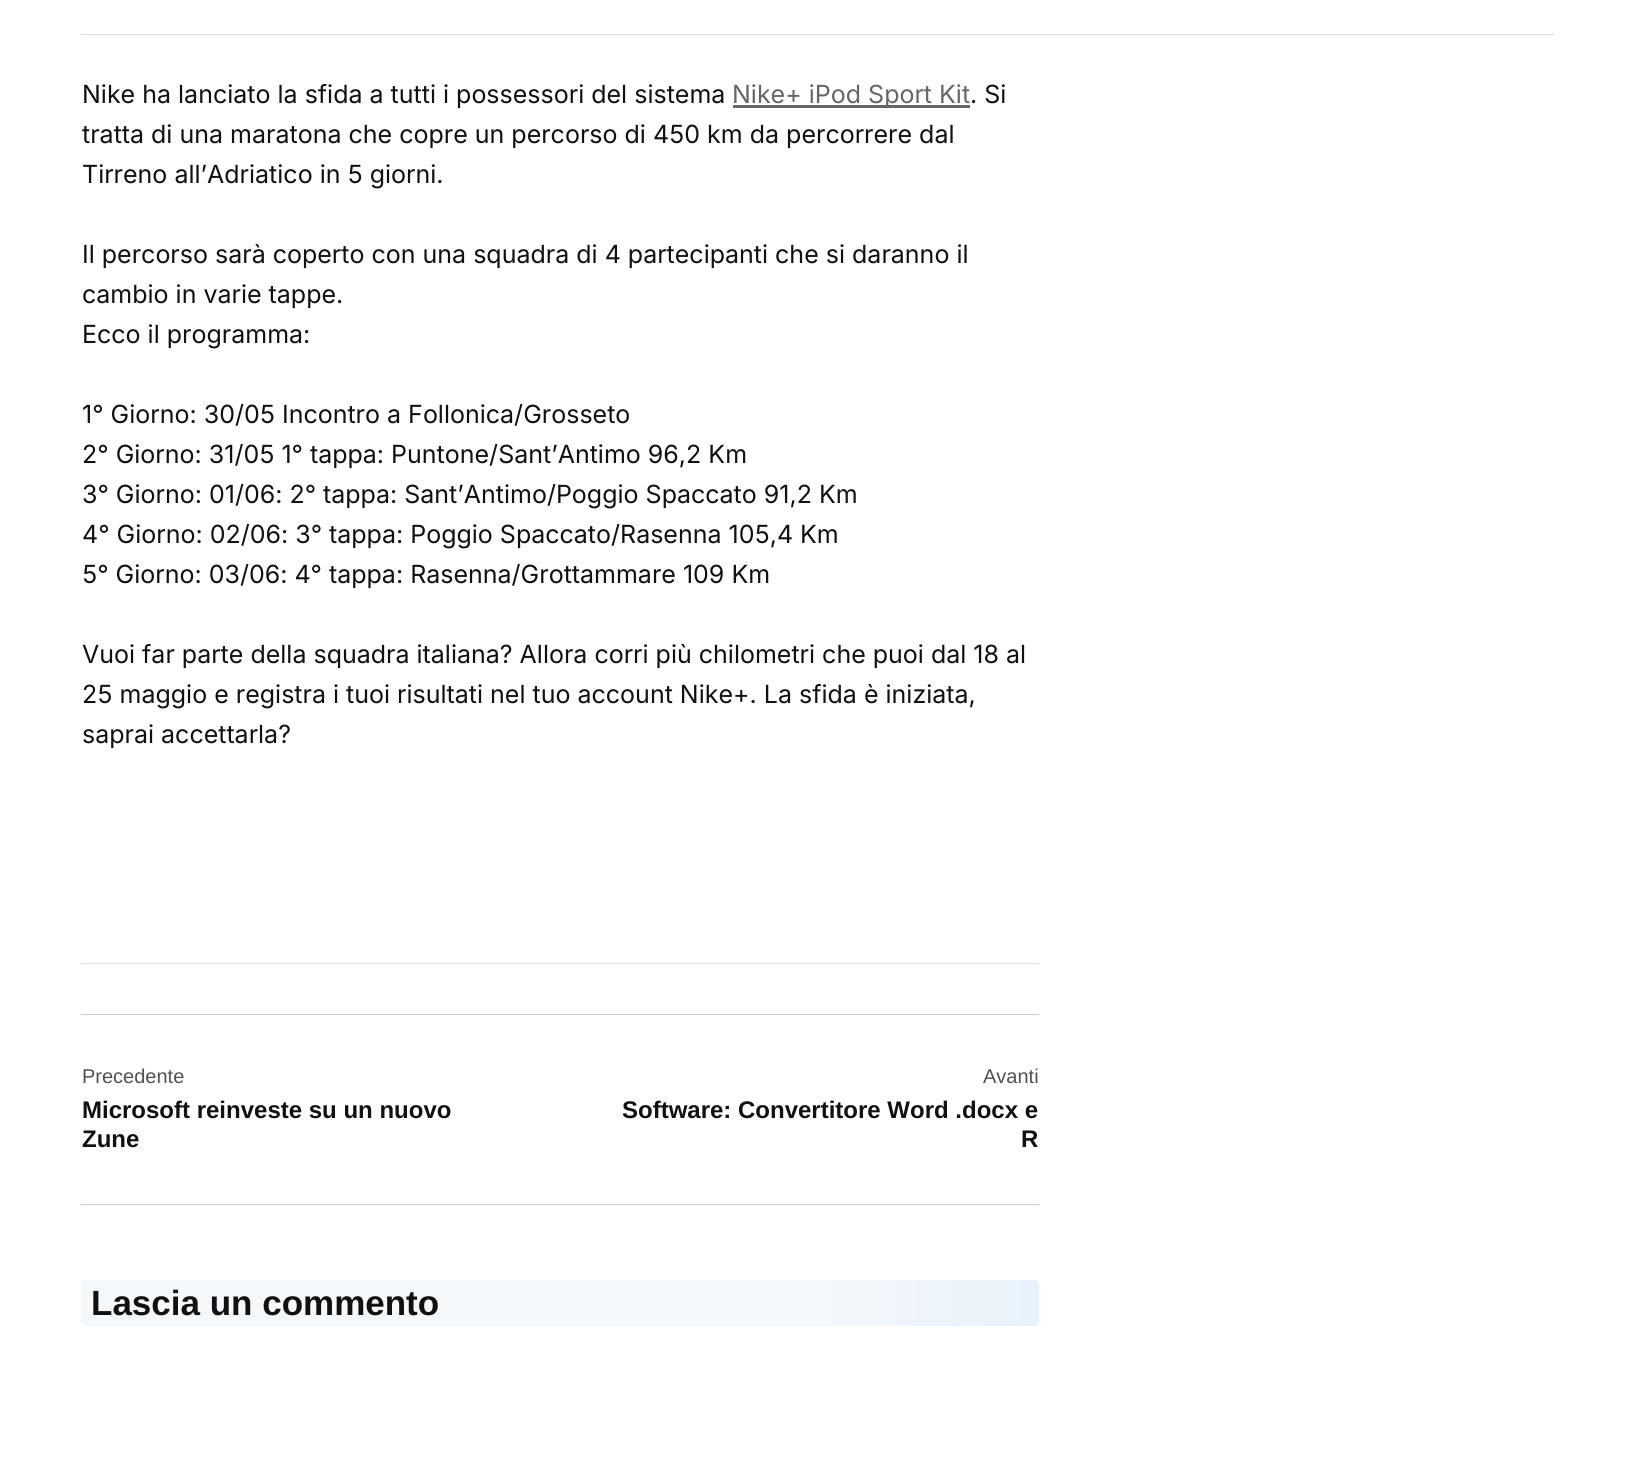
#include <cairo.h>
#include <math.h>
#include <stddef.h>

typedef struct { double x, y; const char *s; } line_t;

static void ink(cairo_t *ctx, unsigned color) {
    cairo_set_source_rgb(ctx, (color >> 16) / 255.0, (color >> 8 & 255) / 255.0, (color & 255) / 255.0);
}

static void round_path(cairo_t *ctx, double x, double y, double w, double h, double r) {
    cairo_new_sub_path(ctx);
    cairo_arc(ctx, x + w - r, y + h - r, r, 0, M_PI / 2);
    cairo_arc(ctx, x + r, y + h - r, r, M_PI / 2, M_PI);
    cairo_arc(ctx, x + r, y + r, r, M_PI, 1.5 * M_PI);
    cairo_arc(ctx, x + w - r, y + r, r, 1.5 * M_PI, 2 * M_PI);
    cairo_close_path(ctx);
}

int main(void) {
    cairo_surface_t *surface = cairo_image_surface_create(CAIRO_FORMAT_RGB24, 1635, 1481);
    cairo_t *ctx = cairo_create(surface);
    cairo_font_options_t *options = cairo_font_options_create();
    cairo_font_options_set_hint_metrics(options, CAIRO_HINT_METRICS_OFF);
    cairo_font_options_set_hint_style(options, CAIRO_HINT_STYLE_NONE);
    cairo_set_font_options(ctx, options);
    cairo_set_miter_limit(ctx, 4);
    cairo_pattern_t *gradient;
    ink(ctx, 0xFFFFFF);
    cairo_paint(ctx);
    ink(ctx, 0xDDDDDD);
    cairo_rectangle(ctx, 81, 34, 1473, 1);
    cairo_fill(ctx);
    ink(ctx, 0xE0E0E1);
    cairo_rectangle(ctx, 81, 963, 958, 1);
    cairo_fill(ctx);
    cairo_select_font_face(ctx, "Inter", CAIRO_FONT_SLANT_NORMAL, CAIRO_FONT_WEIGHT_NORMAL);
    cairo_set_font_size(ctx, 25);
    ink(ctx, 0x111111);
    cairo_move_to(ctx, 82, 103);
    cairo_show_text(ctx, "Nike ha lanciato la sfida a tutti i possessori del sistema");
    ink(ctx, 0x666666);
    cairo_rectangle(ctx, 733, 105, 237, 3);
    cairo_fill(ctx);
    cairo_move_to(ctx, 732, 103);
    cairo_show_text(ctx, "Nike+ iPod Sport Kit");
    ink(ctx, 0x111111);
    {
        static const line_t items[] = {
            {970, 103, ". Si"},
            {82, 143, "tratta di una maratona che copre un percorso di 450 km da percorrere dal"},
            {82, 183, "Tirreno all’Adriatico in 5 giorni."},
            {82, 263, "Il percorso sarà coperto con una squadra di 4 partecipanti che si daranno il"},
            {82, 303, "cambio in varie tappe."},
            {82, 343, "Ecco il programma:"},
            {82, 423, "1° Giorno: 30/05 Incontro a Follonica/Grosseto"},
            {82, 463, "2° Giorno: 31/05 1° tappa: Puntone/Sant’Antimo 96,2 Km"},
            {82, 503, "3° Giorno: 01/06: 2° tappa: Sant’Antimo/Poggio Spaccato 91,2 Km"},
            {82, 543, "4° Giorno: 02/06: 3° tappa: Poggio Spaccato/Rasenna 105,4 Km"},
            {82, 583, "5° Giorno: 03/06: 4° tappa: Rasenna/Grottammare 109 Km"},
            {82, 663, "Vuoi far parte della squadra italiana? Allora corri più chilometri che puoi dal 18 al"},
            {82, 703, "25 maggio e registra i tuoi risultati nel tuo account Nike+. La sfida è iniziata,"},
            {82, 743, "saprai accettarla?"},
        };
        for (size_t i = 0; i < sizeof items / sizeof *items; i++) {
            cairo_move_to(ctx, items[i].x, items[i].y);
            cairo_show_text(ctx, items[i].s);
        }
    }
    ink(ctx, 0xCCCCCC);
    cairo_rectangle(ctx, 81, 1014, 958, 1);
    cairo_fill(ctx);
    cairo_rectangle(ctx, 81, 1204, 958, 1);
    cairo_fill(ctx);
    cairo_select_font_face(ctx, "Liberation Sans", CAIRO_FONT_SLANT_NORMAL, CAIRO_FONT_WEIGHT_NORMAL);
    cairo_set_font_size(ctx, 20);
    ink(ctx, 0x515151);
    cairo_move_to(ctx, 82, 1083);
    cairo_show_text(ctx, "Precedente");
    cairo_select_font_face(ctx, "Liberation Sans", CAIRO_FONT_SLANT_NORMAL, CAIRO_FONT_WEIGHT_BOLD);
    cairo_set_font_size(ctx, 24);
    ink(ctx, 0x111111);
    cairo_move_to(ctx, 82, 1118);
    cairo_show_text(ctx, "Microsoft reinveste su un nuovo");
    cairo_move_to(ctx, 82, 1147);
    cairo_show_text(ctx, "Zune");
    cairo_select_font_face(ctx, "Liberation Sans", CAIRO_FONT_SLANT_NORMAL, CAIRO_FONT_WEIGHT_NORMAL);
    cairo_set_font_size(ctx, 20);
    ink(ctx, 0x515151);
    cairo_move_to(ctx, 983, 1083);
    cairo_show_text(ctx, "Avanti");
    cairo_select_font_face(ctx, "Liberation Sans", CAIRO_FONT_SLANT_NORMAL, CAIRO_FONT_WEIGHT_BOLD);
    cairo_set_font_size(ctx, 24);
    ink(ctx, 0x111111);
    cairo_move_to(ctx, 622, 1118);
    cairo_show_text(ctx, "Software: Convertitore Word .docx e");
    cairo_move_to(ctx, 1021, 1147);
    cairo_show_text(ctx, "R");
    gradient = cairo_pattern_create_linear(81, 1303, 1039, 1303);
    cairo_pattern_add_color_stop_rgba(gradient, 0.76, 0.957, 0.973, 0.984, 1);
    cairo_pattern_add_color_stop_rgba(gradient, 1, 0.91, 0.949, 0.98, 1);
    cairo_set_source(ctx, gradient);
    cairo_pattern_destroy(gradient);
    round_path(ctx, 81, 1280, 958, 46, 5);
    cairo_fill(ctx);
    cairo_set_font_size(ctx, 35);
    ink(ctx, 0x111111);
    cairo_move_to(ctx, 91, 1315);
    cairo_show_text(ctx, "Lascia un commento");
    cairo_surface_write_to_png(surface, "image.png");
    cairo_font_options_destroy(options);
    cairo_destroy(ctx);
    cairo_surface_destroy(surface);
    return 0;
}
